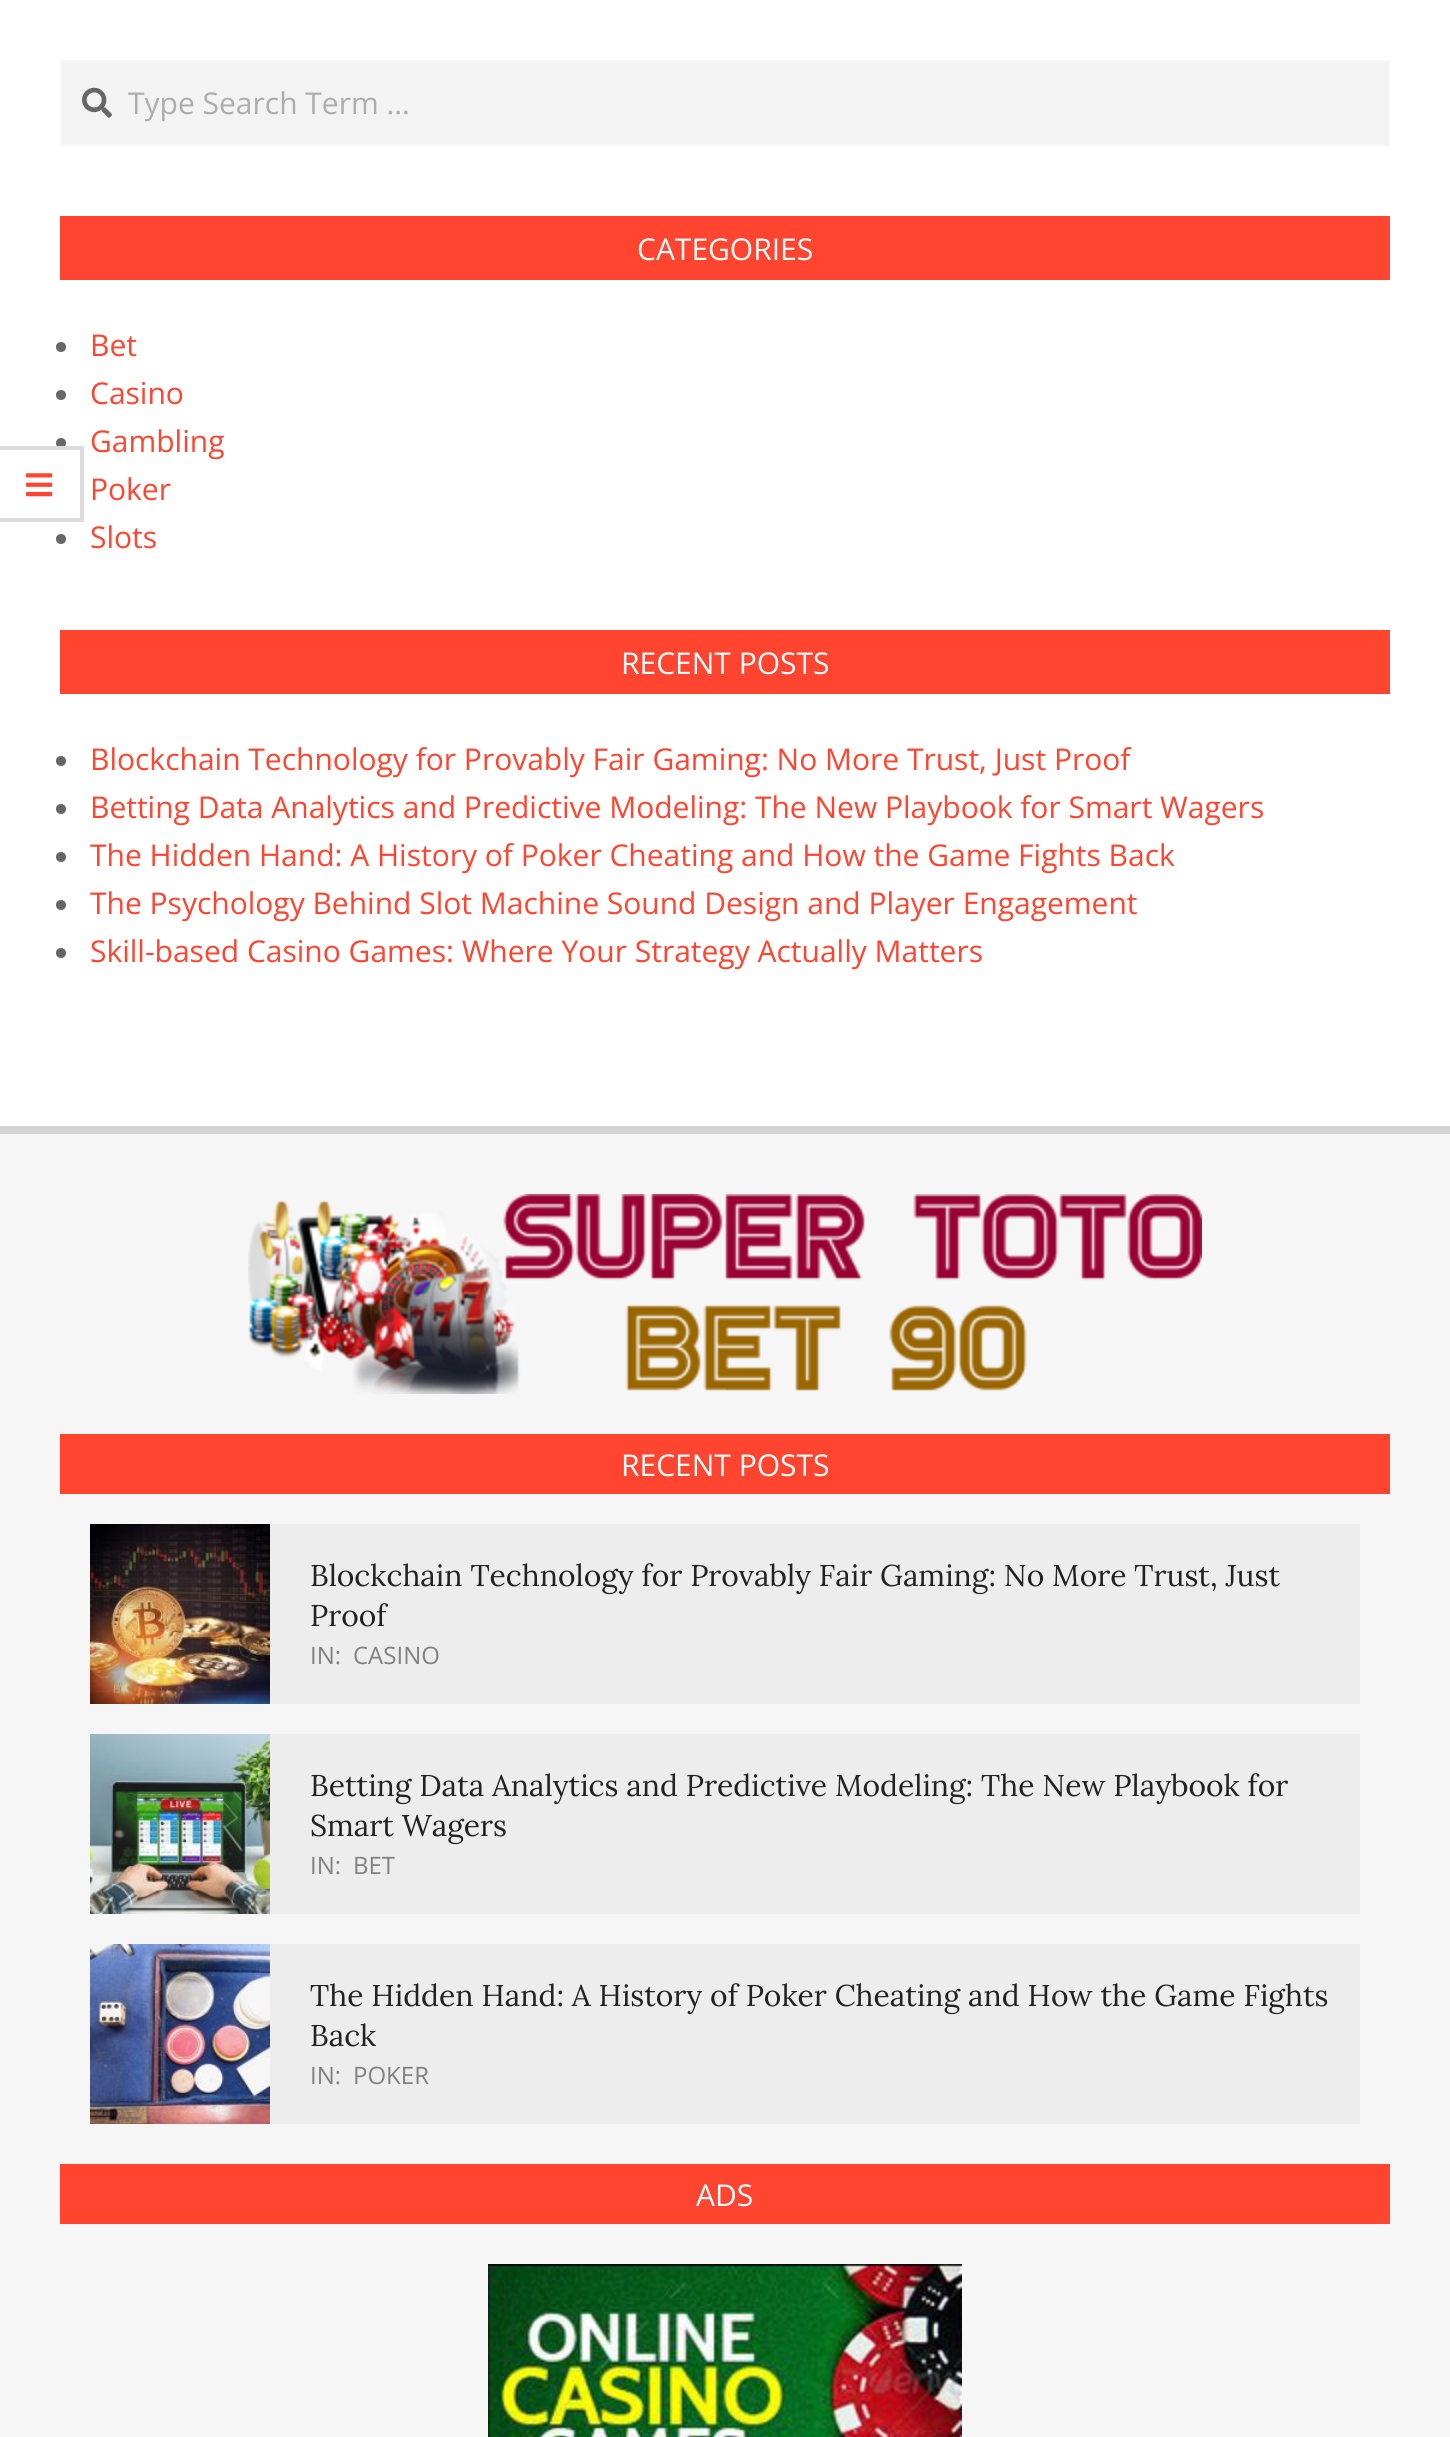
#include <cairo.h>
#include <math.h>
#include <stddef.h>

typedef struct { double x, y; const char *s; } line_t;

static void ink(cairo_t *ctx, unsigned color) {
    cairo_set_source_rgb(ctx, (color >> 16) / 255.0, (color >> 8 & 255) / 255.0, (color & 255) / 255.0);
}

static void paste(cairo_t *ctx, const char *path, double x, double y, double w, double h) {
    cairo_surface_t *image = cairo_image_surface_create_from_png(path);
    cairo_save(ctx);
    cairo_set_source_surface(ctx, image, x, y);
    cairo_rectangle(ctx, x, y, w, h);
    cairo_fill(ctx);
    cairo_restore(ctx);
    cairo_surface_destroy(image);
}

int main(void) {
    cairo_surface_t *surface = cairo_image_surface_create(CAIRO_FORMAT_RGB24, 1450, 2437);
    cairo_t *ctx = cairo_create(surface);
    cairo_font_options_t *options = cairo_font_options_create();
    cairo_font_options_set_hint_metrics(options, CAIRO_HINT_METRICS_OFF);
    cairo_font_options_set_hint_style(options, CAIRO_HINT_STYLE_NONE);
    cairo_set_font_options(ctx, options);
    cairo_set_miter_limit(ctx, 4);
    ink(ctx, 0xFFFFFF);
    cairo_paint(ctx);
    ink(ctx, 0x666666);
    cairo_arc(ctx, 61, 443, 5, 0, 2 * M_PI);
    cairo_fill(ctx);
    ink(ctx, 0xFFFFFF);
    cairo_rectangle(ctx, 57, 446, 8, 2);
    cairo_fill(ctx);
    ink(ctx, 0xDBDBDB);
    cairo_new_path(ctx);
    cairo_move_to(ctx, 0, 446);
    cairo_line_to(ctx, 84, 446);
    cairo_line_to(ctx, 80, 450);
    cairo_line_to(ctx, 0, 450);
    cairo_close_path(ctx);
    cairo_fill(ctx);
    cairo_set_source_rgba(ctx, 0, 0, 0, 0.14);
    cairo_new_path(ctx);
    cairo_move_to(ctx, 84, 446);
    cairo_line_to(ctx, 84, 522);
    cairo_line_to(ctx, 80, 518);
    cairo_line_to(ctx, 80, 450);
    cairo_close_path(ctx);
    cairo_fill(ctx);
    cairo_new_path(ctx);
    cairo_move_to(ctx, 84, 522);
    cairo_line_to(ctx, 0, 522);
    cairo_line_to(ctx, 0, 518);
    cairo_line_to(ctx, 80, 518);
    cairo_close_path(ctx);
    cairo_fill(ctx);
    paste(ctx, "media/1.png", 26, 473, 27, 24);
    ink(ctx, 0xF3F3F3);
    cairo_rectangle(ctx, 61, 61, 1328, 84);
    cairo_fill_preserve(ctx);
    ink(ctx, 0xF7F7F7);
    cairo_stroke(ctx);
    paste(ctx, "media/2.png", 82, 87, 30, 31);
    cairo_select_font_face(ctx, "Open Sans", CAIRO_FONT_SLANT_NORMAL, CAIRO_FONT_WEIGHT_NORMAL);
    cairo_set_font_size(ctx, 30);
    ink(ctx, 0xADADAD);
    cairo_move_to(ctx, 128, 114);
    cairo_show_text(ctx, "Type Search Term …");
    ink(ctx, 0xFF4530);
    cairo_rectangle(ctx, 60, 216, 1330, 64);
    cairo_fill(ctx);
    ink(ctx, 0xFFFFFF);
    cairo_move_to(ctx, 637, 260);
    cairo_show_text(ctx, "CATEGORIES");
    ink(ctx, 0x666666);
    cairo_new_path(ctx);
    cairo_arc(ctx, 61, 347, 5, 0, 2 * M_PI);
    cairo_fill(ctx);
    ink(ctx, 0xFF4530);
    cairo_move_to(ctx, 90, 356);
    cairo_show_text(ctx, "Bet");
    ink(ctx, 0x666666);
    cairo_new_path(ctx);
    cairo_arc(ctx, 61, 395, 5, 0, 2 * M_PI);
    cairo_fill(ctx);
    ink(ctx, 0xFF4530);
    {
        static const line_t items[] = {
            {90, 404, "Casino"},
            {90, 452, "Gambling"},
            {90, 500, "Poker"},
        };
        for (size_t i = 0; i < sizeof items / sizeof *items; i++) {
            cairo_move_to(ctx, items[i].x, items[i].y);
            cairo_show_text(ctx, items[i].s);
        }
    }
    ink(ctx, 0x666666);
    cairo_new_path(ctx);
    cairo_arc(ctx, 61, 539, 5, 0, 2 * M_PI);
    cairo_fill(ctx);
    ink(ctx, 0xFF4530);
    cairo_move_to(ctx, 90, 548);
    cairo_show_text(ctx, "Slots");
    cairo_rectangle(ctx, 60, 630, 1330, 64);
    cairo_fill(ctx);
    ink(ctx, 0xFFFFFF);
    cairo_move_to(ctx, 621, 674);
    cairo_show_text(ctx, "RECENT POSTS");
    ink(ctx, 0x666666);
    cairo_new_path(ctx);
    cairo_arc(ctx, 61, 761, 5, 0, 2 * M_PI);
    cairo_fill(ctx);
    ink(ctx, 0xFF4530);
    cairo_move_to(ctx, 90, 770);
    cairo_show_text(ctx, "Blockchain Technology for Provably Fair Gaming: No More Trust, Just Proof");
    ink(ctx, 0x666666);
    cairo_new_path(ctx);
    cairo_arc(ctx, 61, 809, 5, 0, 2 * M_PI);
    cairo_fill(ctx);
    ink(ctx, 0xFF4530);
    cairo_move_to(ctx, 90, 818);
    cairo_show_text(ctx, "Betting Data Analytics and Predictive Modeling: The New Playbook for Smart Wagers");
    ink(ctx, 0x666666);
    cairo_new_path(ctx);
    cairo_arc(ctx, 61, 857, 5, 0, 2 * M_PI);
    cairo_fill(ctx);
    ink(ctx, 0xFF4530);
    cairo_move_to(ctx, 90, 866);
    cairo_show_text(ctx, "The Hidden Hand: A History of Poker Cheating and How the Game Fights Back");
    ink(ctx, 0x666666);
    cairo_new_path(ctx);
    cairo_arc(ctx, 61, 905, 5, 0, 2 * M_PI);
    cairo_fill(ctx);
    ink(ctx, 0xFF4530);
    cairo_move_to(ctx, 90, 914);
    cairo_show_text(ctx, "The Psychology Behind Slot Machine Sound Design and Player Engagement");
    ink(ctx, 0x666666);
    cairo_new_path(ctx);
    cairo_arc(ctx, 61, 953, 5, 0, 2 * M_PI);
    cairo_fill(ctx);
    ink(ctx, 0xFF4530);
    cairo_move_to(ctx, 90, 962);
    cairo_show_text(ctx, "Skill-based Casino Games: Where Your Strategy Actually Matters");
    ink(ctx, 0xF6F6F6);
    cairo_rectangle(ctx, 0, 1134, 1450, 1303);
    cairo_fill(ctx);
    ink(ctx, 0xD4D4D4);
    cairo_rectangle(ctx, 0, 1126, 1450, 8);
    cairo_fill(ctx);
    paste(ctx, "media/3.png", 248, 1194, 954, 200);
    ink(ctx, 0xFF4530);
    cairo_rectangle(ctx, 60, 1434, 1330, 60);
    cairo_fill(ctx);
    ink(ctx, 0xFFFFFF);
    cairo_move_to(ctx, 621, 1476);
    cairo_show_text(ctx, "RECENT POSTS");
    ink(ctx, 0xEDEDED);
    cairo_rectangle(ctx, 270, 1524, 1090, 180);
    cairo_fill(ctx);
    paste(ctx, "media/4.png", 90, 1524, 180, 180);
    cairo_select_font_face(ctx, "Lora", CAIRO_FONT_SLANT_NORMAL, CAIRO_FONT_WEIGHT_NORMAL);
    ink(ctx, 0x222222);
    cairo_move_to(ctx, 310, 1586);
    cairo_show_text(ctx, "Blockchain Technology for Provably Fair Gaming: No More Trust, Just");
    cairo_move_to(ctx, 310, 1626);
    cairo_show_text(ctx, "Proof");
    cairo_select_font_face(ctx, "Open Sans", CAIRO_FONT_SLANT_NORMAL, CAIRO_FONT_WEIGHT_NORMAL);
    cairo_set_font_size(ctx, 24);
    ink(ctx, 0x818181);
    cairo_move_to(ctx, 310, 1664);
    cairo_show_text(ctx, "IN:");
    cairo_move_to(ctx, 353, 1664);
    cairo_show_text(ctx, "CASINO");
    ink(ctx, 0xEDEDED);
    cairo_rectangle(ctx, 270, 1734, 1090, 180);
    cairo_fill(ctx);
    paste(ctx, "media/5.png", 90, 1734, 180, 180);
    cairo_select_font_face(ctx, "Lora", CAIRO_FONT_SLANT_NORMAL, CAIRO_FONT_WEIGHT_NORMAL);
    cairo_set_font_size(ctx, 30);
    ink(ctx, 0x222222);
    cairo_move_to(ctx, 310, 1796);
    cairo_show_text(ctx, "Betting Data Analytics and Predictive Modeling: The New Playbook for");
    cairo_move_to(ctx, 310, 1836);
    cairo_show_text(ctx, "Smart Wagers");
    cairo_select_font_face(ctx, "Open Sans", CAIRO_FONT_SLANT_NORMAL, CAIRO_FONT_WEIGHT_NORMAL);
    cairo_set_font_size(ctx, 24);
    ink(ctx, 0x818181);
    cairo_move_to(ctx, 310, 1874);
    cairo_show_text(ctx, "IN:");
    cairo_move_to(ctx, 353, 1874);
    cairo_show_text(ctx, "BET");
    ink(ctx, 0xEDEDED);
    cairo_rectangle(ctx, 270, 1944, 1090, 180);
    cairo_fill(ctx);
    paste(ctx, "media/6.png", 90, 1944, 180, 180);
    cairo_select_font_face(ctx, "Lora", CAIRO_FONT_SLANT_NORMAL, CAIRO_FONT_WEIGHT_NORMAL);
    cairo_set_font_size(ctx, 30);
    ink(ctx, 0x222222);
    cairo_move_to(ctx, 310, 2006);
    cairo_show_text(ctx, "The Hidden Hand: A History of Poker Cheating and How the Game Fights");
    cairo_move_to(ctx, 310, 2046);
    cairo_show_text(ctx, "Back");
    cairo_select_font_face(ctx, "Open Sans", CAIRO_FONT_SLANT_NORMAL, CAIRO_FONT_WEIGHT_NORMAL);
    cairo_set_font_size(ctx, 24);
    ink(ctx, 0x818181);
    cairo_move_to(ctx, 310, 2084);
    cairo_show_text(ctx, "IN:");
    cairo_move_to(ctx, 353, 2084);
    cairo_show_text(ctx, "POKER");
    ink(ctx, 0xFF4530);
    cairo_rectangle(ctx, 60, 2164, 1330, 60);
    cairo_fill(ctx);
    cairo_set_font_size(ctx, 30);
    ink(ctx, 0xFFFFFF);
    cairo_move_to(ctx, 696, 2206);
    cairo_show_text(ctx, "ADS");
    paste(ctx, "media/7.png", 488, 2264, 474, 173);
    cairo_surface_write_to_png(surface, "image.png");
    cairo_font_options_destroy(options);
    cairo_destroy(ctx);
    cairo_surface_destroy(surface);
    return 0;
}
